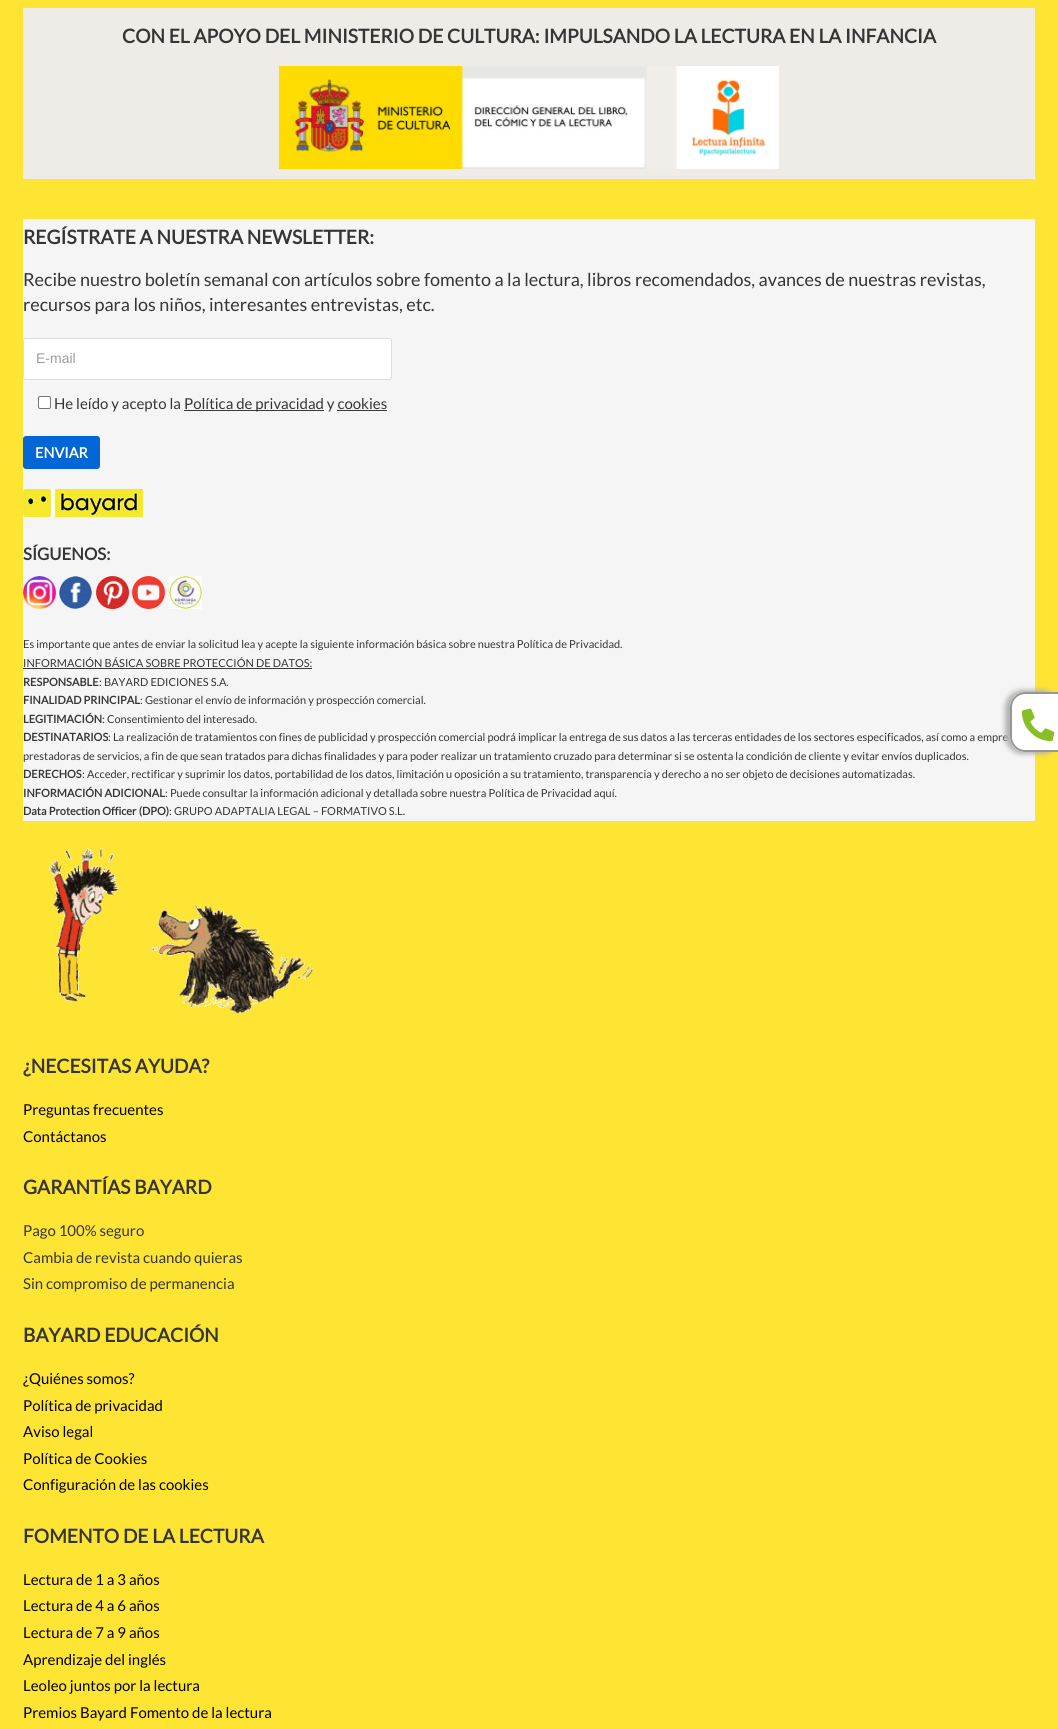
#include <cairo.h>
#include <math.h>
#include <stddef.h>

typedef struct { double x, y; const char *s; } line_t;

static void ink(cairo_t *ctx, unsigned color) {
    cairo_set_source_rgb(ctx, (color >> 16) / 255.0, (color >> 8 & 255) / 255.0, (color & 255) / 255.0);
}

static void round_path(cairo_t *ctx, double x, double y, double w, double h, double r) {
    cairo_new_sub_path(ctx);
    cairo_arc(ctx, x + w - r, y + h - r, r, 0, M_PI / 2);
    cairo_arc(ctx, x + r, y + h - r, r, M_PI / 2, M_PI);
    cairo_arc(ctx, x + r, y + r, r, M_PI, 1.5 * M_PI);
    cairo_arc(ctx, x + w - r, y + r, r, 1.5 * M_PI, 2 * M_PI);
    cairo_close_path(ctx);
}

static void blur_box(cairo_t *ctx, double x, double y, double w, double h, double r, double blur, double alpha) {
    cairo_push_group_with_content(ctx, CAIRO_CONTENT_ALPHA);
    cairo_set_operator(ctx, CAIRO_OPERATOR_SOURCE);
    for (int i = 15; i >= -15 && fmin(w, h) + blur * i / 3 > 0; i -= 2) {
        double e = blur * i / 6;
        cairo_set_source_rgba(ctx, 0, 0, 0, alpha * erfc((i - 1) / 8.5) / 2);
        round_path(ctx, x - e, y - e, w + 2 * e, h + 2 * e, fmax(0, fmin(r + e + blur * .6, fmin(w, h) / 2 + e)));
        cairo_fill(ctx);
    }
    cairo_pattern_t *soft = cairo_pop_group(ctx);
    cairo_mask(ctx, soft);
    cairo_pattern_destroy(soft);
}

static void paste(cairo_t *ctx, const char *path, double x, double y, double w, double h) {
    cairo_surface_t *image = cairo_image_surface_create_from_png(path);
    cairo_save(ctx);
    cairo_set_source_surface(ctx, image, x, y);
    cairo_rectangle(ctx, x, y, w, h);
    cairo_fill(ctx);
    cairo_restore(ctx);
    cairo_surface_destroy(image);
}

int main(void) {
    cairo_surface_t *surface = cairo_image_surface_create(CAIRO_FORMAT_RGB24, 1058, 1729);
    cairo_t *ctx = cairo_create(surface);
    cairo_font_options_t *options = cairo_font_options_create();
    cairo_font_options_set_hint_metrics(options, CAIRO_HINT_METRICS_OFF);
    cairo_font_options_set_hint_style(options, CAIRO_HINT_STYLE_NONE);
    cairo_set_font_options(ctx, options);
    cairo_set_miter_limit(ctx, 4);
    ink(ctx, 0xFEE433);
    cairo_paint(ctx);
    ink(ctx, 0xEFECE7);
    cairo_rectangle(ctx, 23, 8, 1012, 171);
    cairo_fill(ctx);
    cairo_select_font_face(ctx, "Lato", CAIRO_FONT_SLANT_NORMAL, CAIRO_FONT_WEIGHT_BOLD);
    cairo_set_font_size(ctx, 19.2);
    ink(ctx, 0x353535);
    cairo_move_to(ctx, 122, 43);
    cairo_show_text(ctx, "CON EL APOYO DEL MINISTERIO DE CULTURA: IMPULSANDO LA LECTURA EN LA INFANCIA");
    paste(ctx, "media/1.png", 279, 66, 500, 103);
    ink(ctx, 0xF5F5F5);
    cairo_rectangle(ctx, 23, 219, 1012, 602);
    cairo_fill(ctx);
    ink(ctx, 0x353535);
    cairo_move_to(ctx, 23, 244);
    cairo_show_text(ctx, "REGÍSTRATE A NUESTRA NEWSLETTER:");
    cairo_select_font_face(ctx, "Lato", CAIRO_FONT_SLANT_NORMAL, CAIRO_FONT_WEIGHT_NORMAL);
    cairo_set_font_size(ctx, 18);
    cairo_move_to(ctx, 23, 286);
    cairo_show_text(ctx, "Recibe nuestro boletín semanal con artículos sobre fomento a la lectura, libros recomendados, avances de nuestras revistas,");
    cairo_move_to(ctx, 23, 311);
    cairo_show_text(ctx, "recursos para los niños, interesantes entrevistas, etc.");
    ink(ctx, 0xFFFFFF);
    round_path(ctx, 23.5, 338.5, 368, 41, 2.5);
    cairo_fill_preserve(ctx);
    ink(ctx, 0xDDDDDD);
    cairo_set_line_width(ctx, 1);
    cairo_stroke(ctx);
    cairo_select_font_face(ctx, "Liberation Sans", CAIRO_FONT_SLANT_NORMAL, CAIRO_FONT_WEIGHT_NORMAL);
    cairo_set_font_size(ctx, 14);
    ink(ctx, 0x9C9C9C);
    cairo_move_to(ctx, 36, 363);
    cairo_show_text(ctx, "E-mail");
    ink(ctx, 0xFFFFFF);
    round_path(ctx, 38.5, 396.5, 12, 12, 1.5);
    cairo_fill_preserve(ctx);
    ink(ctx, 0x767676);
    cairo_stroke(ctx);
    cairo_select_font_face(ctx, "Lato", CAIRO_FONT_SLANT_NORMAL, CAIRO_FONT_WEIGHT_NORMAL);
    cairo_set_font_size(ctx, 15);
    ink(ctx, 0x353535);
    cairo_move_to(ctx, 54, 409);
    cairo_show_text(ctx, "He leído y acepto la");
    ink(ctx, 0x393939);
    cairo_rectangle(ctx, 184, 410, 140, 1);
    cairo_fill(ctx);
    ink(ctx, 0x353535);
    cairo_move_to(ctx, 184, 409);
    cairo_show_text(ctx, "Política de privacidad y cookies");
    ink(ctx, 0x393939);
    cairo_rectangle(ctx, 337, 410, 50, 1);
    cairo_fill(ctx);
    ink(ctx, 0x0366D6);
    round_path(ctx, 23, 436, 77, 33, 3);
    cairo_fill(ctx);
    cairo_select_font_face(ctx, "Lato", CAIRO_FONT_SLANT_NORMAL, CAIRO_FONT_WEIGHT_BOLD);
    cairo_set_font_size(ctx, 14.5);
    ink(ctx, 0xFFFFFF);
    cairo_move_to(ctx, 35, 458);
    cairo_show_text(ctx, "ENVIAR");
    paste(ctx, "media/2.png", 23, 489, 120, 28);
    cairo_set_font_size(ctx, 16.75);
    ink(ctx, 0x353535);
    cairo_move_to(ctx, 23, 560);
    cairo_show_text(ctx, "SÍGUENOS:");
    paste(ctx, "media/3.png", 23, 576, 33, 33);
    paste(ctx, "media/4.png", 59, 576, 33, 33);
    paste(ctx, "media/5.png", 96, 576, 33, 33);
    paste(ctx, "media/6.png", 132, 576, 33, 33);
    paste(ctx, "media/7.png", 169, 576, 33, 33);
    cairo_select_font_face(ctx, "Lato", CAIRO_FONT_SLANT_NORMAL, CAIRO_FONT_WEIGHT_NORMAL);
    cairo_set_font_size(ctx, 11);
    cairo_move_to(ctx, 23, 648);
    cairo_show_text(ctx, "Es importante que antes de enviar la solicitud lea y acepte la siguiente información básica sobre nuestra Política de Privacidad.");
    cairo_move_to(ctx, 23, 667);
    cairo_show_text(ctx, "INFORMACIÓN BÁSICA SOBRE PROTECCIÓN DE DATOS:");
    ink(ctx, 0x393939);
    cairo_rectangle(ctx, 23, 668, 289, 1);
    cairo_fill(ctx);
    cairo_select_font_face(ctx, "Lato", CAIRO_FONT_SLANT_NORMAL, CAIRO_FONT_WEIGHT_BOLD);
    ink(ctx, 0x353535);
    cairo_move_to(ctx, 23, 686);
    cairo_show_text(ctx, "RESPONSABLE");
    cairo_select_font_face(ctx, "Lato", CAIRO_FONT_SLANT_NORMAL, CAIRO_FONT_WEIGHT_NORMAL);
    cairo_move_to(ctx, 99, 686);
    cairo_show_text(ctx, ": BAYARD EDICIONES S.A.");
    cairo_select_font_face(ctx, "Lato", CAIRO_FONT_SLANT_NORMAL, CAIRO_FONT_WEIGHT_BOLD);
    cairo_move_to(ctx, 23, 704);
    cairo_show_text(ctx, "FINALIDAD PRINCIPAL");
    cairo_select_font_face(ctx, "Lato", CAIRO_FONT_SLANT_NORMAL, CAIRO_FONT_WEIGHT_NORMAL);
    cairo_move_to(ctx, 140, 704);
    cairo_show_text(ctx, ": Gestionar el envío de información y prospección comercial.");
    cairo_select_font_face(ctx, "Lato", CAIRO_FONT_SLANT_NORMAL, CAIRO_FONT_WEIGHT_BOLD);
    cairo_move_to(ctx, 23, 723);
    cairo_show_text(ctx, "LEGITIMACIÓN");
    cairo_select_font_face(ctx, "Lato", CAIRO_FONT_SLANT_NORMAL, CAIRO_FONT_WEIGHT_NORMAL);
    cairo_move_to(ctx, 102, 723);
    cairo_show_text(ctx, ": Consentimiento del interesado.");
    cairo_select_font_face(ctx, "Lato", CAIRO_FONT_SLANT_NORMAL, CAIRO_FONT_WEIGHT_BOLD);
    cairo_move_to(ctx, 23, 741);
    cairo_show_text(ctx, "DESTINATARIOS");
    cairo_select_font_face(ctx, "Lato", CAIRO_FONT_SLANT_NORMAL, CAIRO_FONT_WEIGHT_NORMAL);
    cairo_move_to(ctx, 108, 741);
    cairo_show_text(ctx, ": La realización de tratamientos con fines de publicidad y prospección comercial podrá implicar la entrega de sus datos a las terceras entidades de los sectores especificados, así como a empre");
    cairo_move_to(ctx, 23, 760);
    cairo_show_text(ctx, "prestadoras de servicios, a fin de que sean tratados para dichas finalidades y para poder realizar un tratamiento cruzado para determinar si se ostenta la condición de cliente y evitar envíos duplicados.");
    cairo_select_font_face(ctx, "Lato", CAIRO_FONT_SLANT_NORMAL, CAIRO_FONT_WEIGHT_BOLD);
    cairo_move_to(ctx, 23, 778);
    cairo_show_text(ctx, "DERECHOS");
    cairo_select_font_face(ctx, "Lato", CAIRO_FONT_SLANT_NORMAL, CAIRO_FONT_WEIGHT_NORMAL);
    cairo_move_to(ctx, 82, 778);
    cairo_show_text(ctx, ": Acceder, rectificar y suprimir los datos, portabilidad de los datos, limitación u oposición a su tratamiento, transparencia y derecho a no ser objeto de decisiones automatizadas.");
    cairo_select_font_face(ctx, "Lato", CAIRO_FONT_SLANT_NORMAL, CAIRO_FONT_WEIGHT_BOLD);
    cairo_move_to(ctx, 23, 797);
    cairo_show_text(ctx, "INFORMACIÓN ADICIONAL");
    cairo_select_font_face(ctx, "Lato", CAIRO_FONT_SLANT_NORMAL, CAIRO_FONT_WEIGHT_NORMAL);
    cairo_move_to(ctx, 165, 797);
    cairo_show_text(ctx, ": Puede consultar la información adicional y detallada sobre nuestra Política de Privacidad aquí.");
    cairo_select_font_face(ctx, "Lato", CAIRO_FONT_SLANT_NORMAL, CAIRO_FONT_WEIGHT_BOLD);
    cairo_move_to(ctx, 23, 815);
    cairo_show_text(ctx, "Data Protection Officer (DPO)");
    cairo_select_font_face(ctx, "Lato", CAIRO_FONT_SLANT_NORMAL, CAIRO_FONT_WEIGHT_NORMAL);
    cairo_move_to(ctx, 169, 815);
    cairo_show_text(ctx, ": GRUPO ADAPTALIA LEGAL – FORMATIVO S.L.");
    paste(ctx, "media/8.png", 49, 847, 265, 167);
    cairo_select_font_face(ctx, "Lato", CAIRO_FONT_SLANT_NORMAL, CAIRO_FONT_WEIGHT_BOLD);
    cairo_set_font_size(ctx, 19.2);
    cairo_move_to(ctx, 23, 1073);
    cairo_show_text(ctx, "¿NECESITAS AYUDA?");
    cairo_select_font_face(ctx, "Lato", CAIRO_FONT_SLANT_NORMAL, CAIRO_FONT_WEIGHT_NORMAL);
    cairo_set_font_size(ctx, 15);
    ink(ctx, 0x000000);
    cairo_move_to(ctx, 23, 1115);
    cairo_show_text(ctx, "Preguntas frecuentes");
    cairo_move_to(ctx, 23, 1142);
    cairo_show_text(ctx, "Contáctanos");
    cairo_select_font_face(ctx, "Lato", CAIRO_FONT_SLANT_NORMAL, CAIRO_FONT_WEIGHT_BOLD);
    cairo_set_font_size(ctx, 19.2);
    ink(ctx, 0x353535);
    cairo_move_to(ctx, 23, 1194);
    cairo_show_text(ctx, "GARANTÍAS BAYARD");
    cairo_select_font_face(ctx, "Lato", CAIRO_FONT_SLANT_NORMAL, CAIRO_FONT_WEIGHT_NORMAL);
    cairo_set_font_size(ctx, 15);
    {
        static const line_t items[] = {
            {23, 1236, "Pago 100% seguro"},
            {23, 1263, "Cambia de revista cuando quieras"},
            {23, 1289, "Sin compromiso de permanencia"},
        };
        for (size_t i = 0; i < sizeof items / sizeof *items; i++) {
            cairo_move_to(ctx, items[i].x, items[i].y);
            cairo_show_text(ctx, items[i].s);
        }
    }
    cairo_select_font_face(ctx, "Lato", CAIRO_FONT_SLANT_NORMAL, CAIRO_FONT_WEIGHT_BOLD);
    cairo_set_font_size(ctx, 19.2);
    cairo_move_to(ctx, 23, 1342);
    cairo_show_text(ctx, "BAYARD EDUCACIÓN");
    cairo_select_font_face(ctx, "Lato", CAIRO_FONT_SLANT_NORMAL, CAIRO_FONT_WEIGHT_NORMAL);
    cairo_set_font_size(ctx, 15);
    ink(ctx, 0x000000);
    {
        static const line_t items[] = {
            {23, 1384, "¿Quiénes somos?"},
            {23, 1411, "Política de privacidad"},
            {23, 1437, "Aviso legal"},
            {23, 1464, "Política de Cookies"},
            {23, 1490, "Configuración de las cookies"},
        };
        for (size_t i = 0; i < sizeof items / sizeof *items; i++) {
            cairo_move_to(ctx, items[i].x, items[i].y);
            cairo_show_text(ctx, items[i].s);
        }
    }
    cairo_select_font_face(ctx, "Lato", CAIRO_FONT_SLANT_NORMAL, CAIRO_FONT_WEIGHT_BOLD);
    cairo_set_font_size(ctx, 19.2);
    ink(ctx, 0x353535);
    cairo_move_to(ctx, 23, 1543);
    cairo_show_text(ctx, "FOMENTO DE LA LECTURA");
    cairo_select_font_face(ctx, "Lato", CAIRO_FONT_SLANT_NORMAL, CAIRO_FONT_WEIGHT_NORMAL);
    cairo_set_font_size(ctx, 15);
    ink(ctx, 0x000000);
    {
        static const line_t items[] = {
            {23, 1585, "Lectura de 1 a 3 años"},
            {23, 1611, "Lectura de 4 a 6 años"},
            {23, 1638, "Lectura de 7 a 9 años"},
            {23, 1665, "Aprendizaje del inglés"},
            {23, 1691, "Leoleo juntos por la lectura"},
            {23, 1718, "Premios Bayard Fomento de la lectura"},
        };
        for (size_t i = 0; i < sizeof items / sizeof *items; i++) {
            cairo_move_to(ctx, items[i].x, items[i].y);
            cairo_show_text(ctx, items[i].s);
        }
    }
    ink(ctx, 0xB3B1AE);
    blur_box(ctx, 1005, 690, 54, 64, 17, 2.5, 1);
    ink(ctx, 0xFFFFFF);
    cairo_new_path(ctx);
    cairo_move_to(ctx, 1025, 692);
    cairo_line_to(ctx, 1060, 692);
    cairo_line_to(ctx, 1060, 752);
    cairo_line_to(ctx, 1025, 752);
    cairo_curve_to(ctx, 1016.5, 752, 1010, 745.5, 1010, 737);
    cairo_line_to(ctx, 1010, 707);
    cairo_curve_to(ctx, 1010, 698.5, 1016.5, 692, 1025, 692);
    cairo_close_path(ctx);
    cairo_fill(ctx);
    ink(ctx, 0x969696);
    cairo_set_fill_rule(ctx, CAIRO_FILL_RULE_EVEN_ODD);
    cairo_new_path(ctx);
    cairo_move_to(ctx, 1025, 692);
    cairo_line_to(ctx, 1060, 692);
    cairo_line_to(ctx, 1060, 752);
    cairo_line_to(ctx, 1025, 752);
    cairo_curve_to(ctx, 1017, 752, 1010, 745, 1010, 737);
    cairo_line_to(ctx, 1010, 707);
    cairo_curve_to(ctx, 1010, 699, 1017, 692, 1025, 692);
    cairo_close_path(ctx);
    cairo_move_to(ctx, 1025, 694);
    cairo_line_to(ctx, 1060, 694);
    cairo_line_to(ctx, 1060, 750);
    cairo_line_to(ctx, 1025, 750);
    cairo_curve_to(ctx, 1018, 750, 1012, 744, 1012, 737);
    cairo_line_to(ctx, 1012, 707);
    cairo_curve_to(ctx, 1012, 700, 1018, 694, 1025, 694);
    cairo_close_path(ctx);
    cairo_fill(ctx);
    paste(ctx, "media/9.png", 1021, 708, 34, 34);
    cairo_surface_write_to_png(surface, "image.png");
    cairo_font_options_destroy(options);
    cairo_destroy(ctx);
    cairo_surface_destroy(surface);
    return 0;
}
